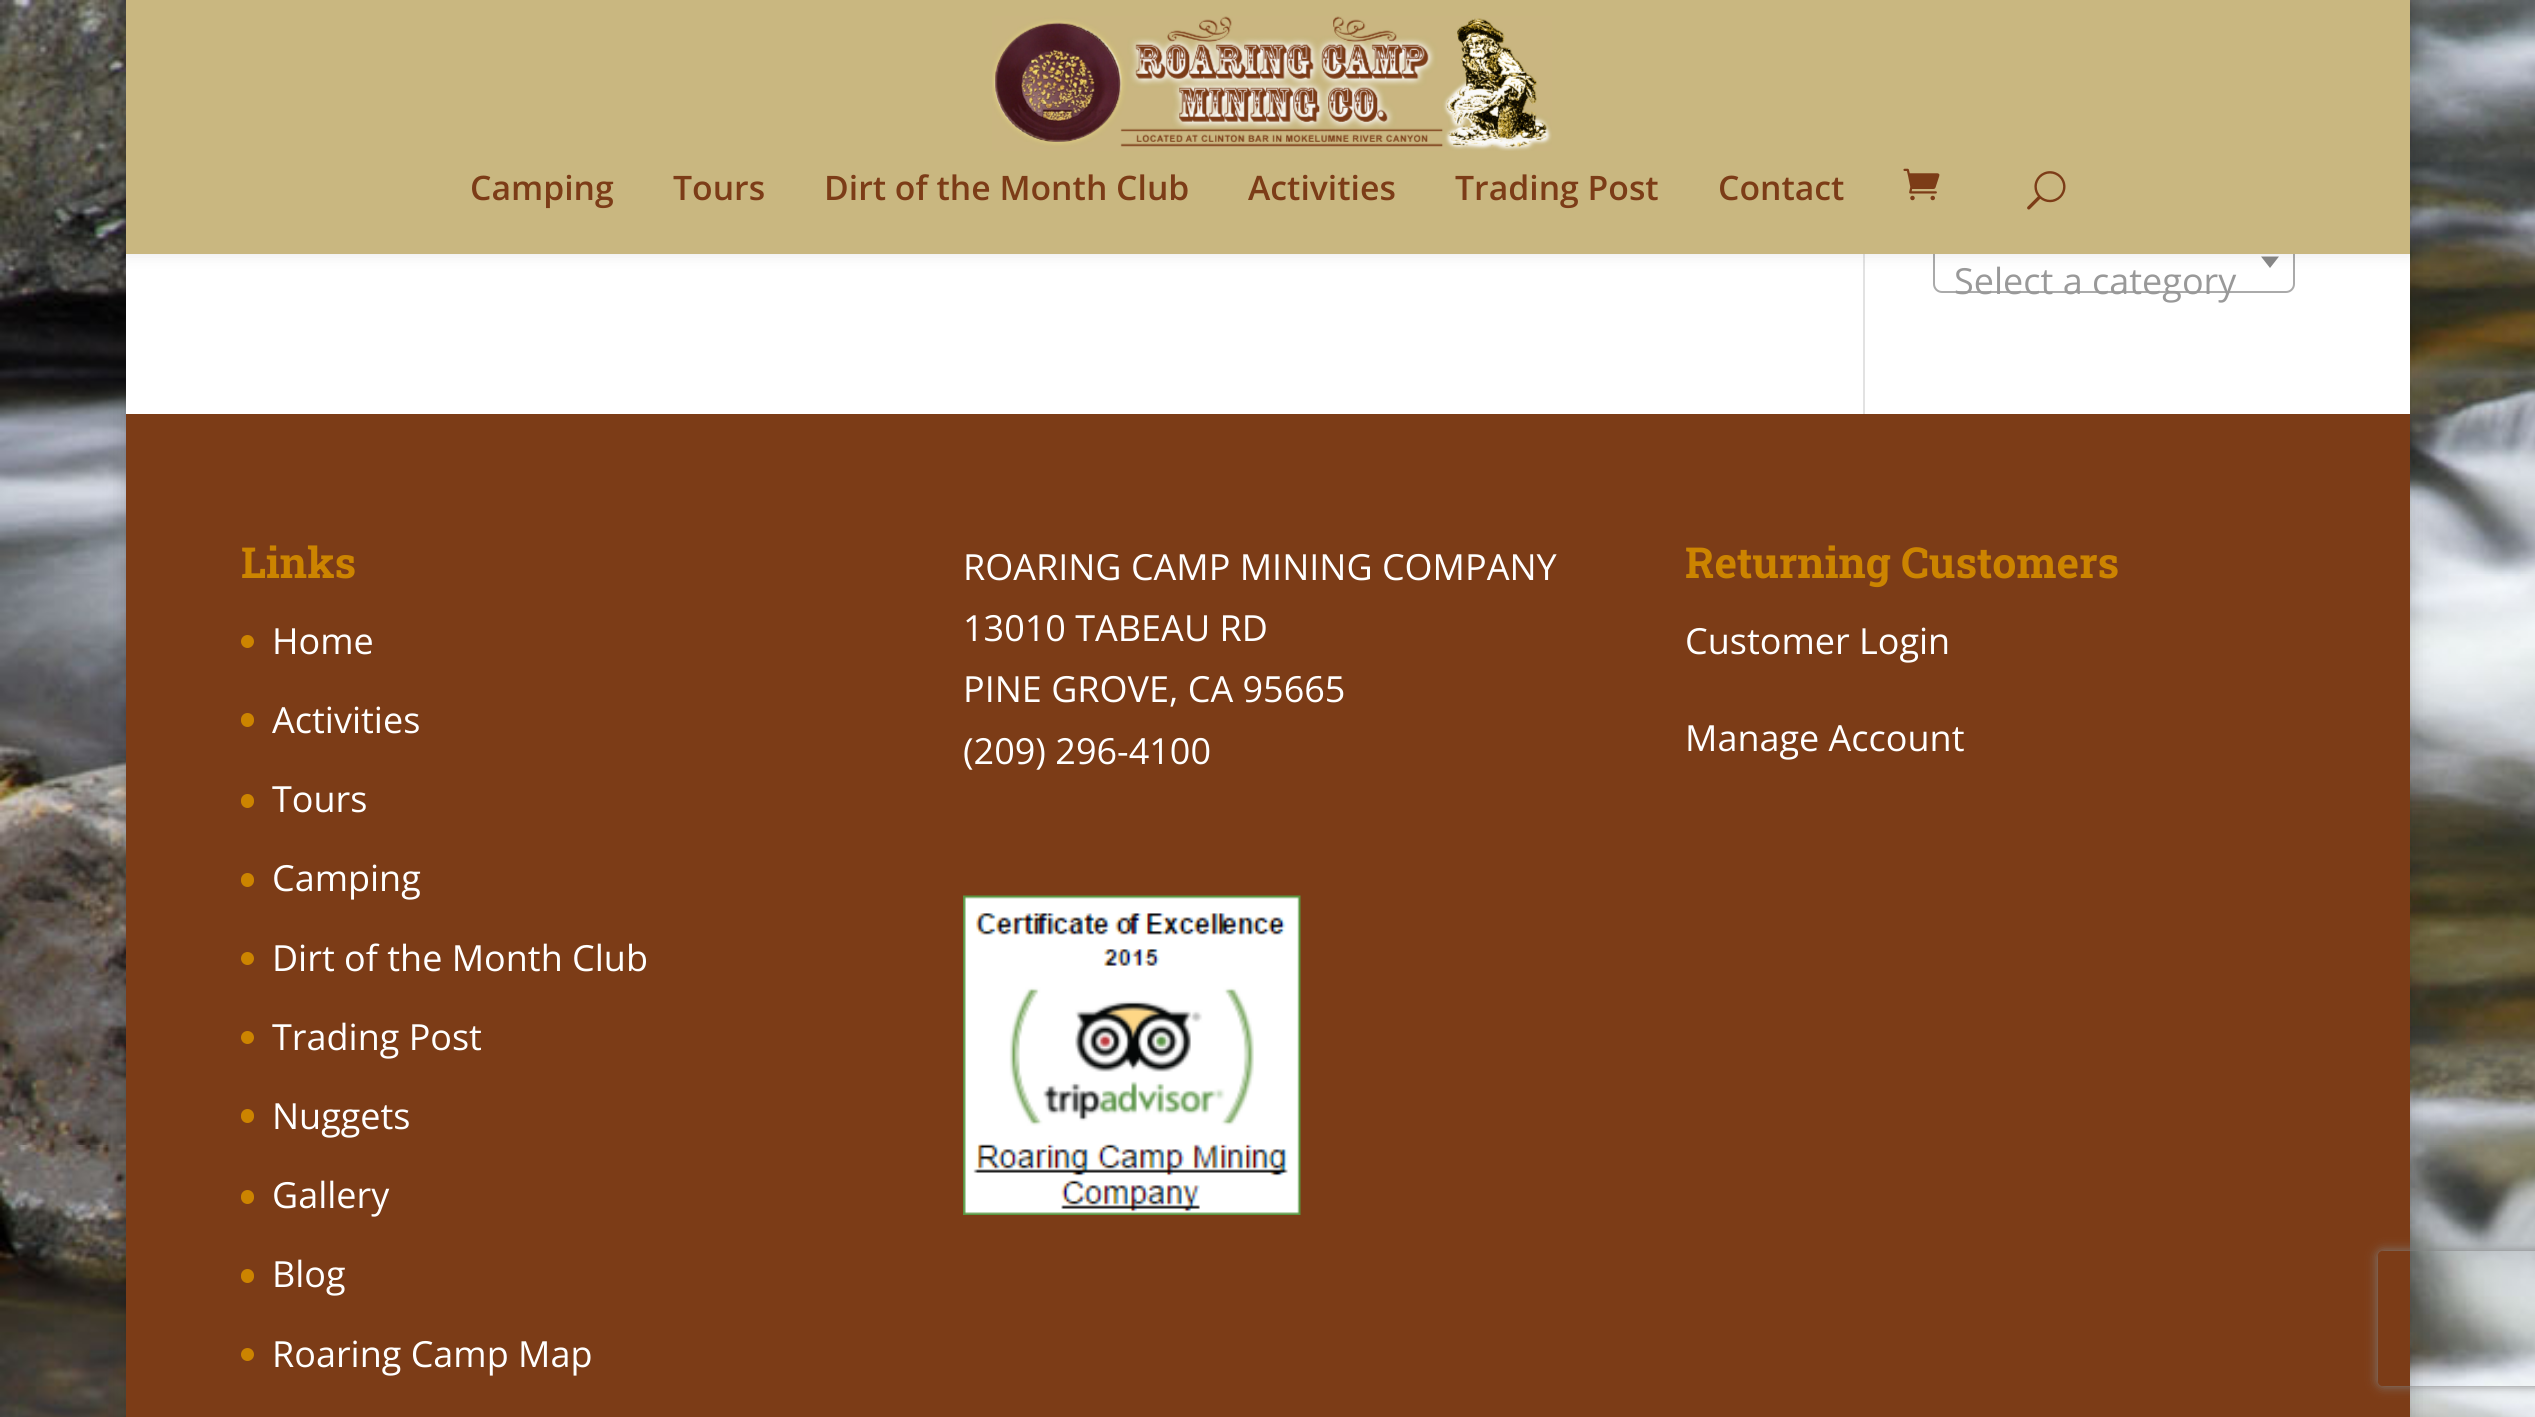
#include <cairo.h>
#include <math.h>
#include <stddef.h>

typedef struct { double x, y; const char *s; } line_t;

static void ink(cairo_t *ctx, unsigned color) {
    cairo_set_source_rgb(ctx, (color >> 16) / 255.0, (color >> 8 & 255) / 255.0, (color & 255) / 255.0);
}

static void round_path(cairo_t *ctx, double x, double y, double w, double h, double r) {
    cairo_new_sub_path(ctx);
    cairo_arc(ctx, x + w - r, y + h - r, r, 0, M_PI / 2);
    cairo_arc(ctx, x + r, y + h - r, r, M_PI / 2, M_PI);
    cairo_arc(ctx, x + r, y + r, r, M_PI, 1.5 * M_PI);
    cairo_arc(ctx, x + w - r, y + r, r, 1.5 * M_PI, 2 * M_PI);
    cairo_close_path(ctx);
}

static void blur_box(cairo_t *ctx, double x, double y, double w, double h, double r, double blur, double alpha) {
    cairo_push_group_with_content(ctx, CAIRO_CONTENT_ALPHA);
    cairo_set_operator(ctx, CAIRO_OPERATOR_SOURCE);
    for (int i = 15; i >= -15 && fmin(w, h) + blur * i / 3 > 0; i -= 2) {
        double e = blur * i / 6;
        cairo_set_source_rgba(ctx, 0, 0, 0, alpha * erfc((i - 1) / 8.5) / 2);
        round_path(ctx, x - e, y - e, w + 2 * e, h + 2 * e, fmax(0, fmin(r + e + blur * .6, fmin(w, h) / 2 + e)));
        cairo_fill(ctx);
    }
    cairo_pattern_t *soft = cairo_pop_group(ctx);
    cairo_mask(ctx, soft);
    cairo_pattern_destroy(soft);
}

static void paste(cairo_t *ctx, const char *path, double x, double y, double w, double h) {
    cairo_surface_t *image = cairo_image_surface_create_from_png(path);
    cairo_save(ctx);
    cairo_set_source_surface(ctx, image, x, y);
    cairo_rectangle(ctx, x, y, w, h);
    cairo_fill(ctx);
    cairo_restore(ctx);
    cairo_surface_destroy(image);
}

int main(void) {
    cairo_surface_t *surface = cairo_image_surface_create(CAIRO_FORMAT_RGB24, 2535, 1417);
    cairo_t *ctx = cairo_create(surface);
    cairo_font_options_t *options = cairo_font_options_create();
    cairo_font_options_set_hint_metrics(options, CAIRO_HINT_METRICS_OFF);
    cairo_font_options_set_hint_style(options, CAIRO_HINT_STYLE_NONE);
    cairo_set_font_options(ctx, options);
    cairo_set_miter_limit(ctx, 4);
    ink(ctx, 0xFFFFFF);
    cairo_paint(ctx);
    paste(ctx, "media/1.png", 0, 0, 2535, 1417);
    ink(ctx, 0x000000);
    blur_box(ctx, 126, -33, 2284, 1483, 0, 11, 0.2);
    ink(ctx, 0xFFFFFF);
    cairo_rectangle(ctx, 126, 254, 2284, 160);
    cairo_fill(ctx);
    ink(ctx, 0xE2E2E2);
    cairo_rectangle(ctx, 1863, 254, 2, 160);
    cairo_fill(ctx);
    round_path(ctx, 1934, 231, 360, 61, 8);
    ink(ctx, 0xAAAAAA);
    cairo_stroke(ctx);
    ink(ctx, 0x888888);
    cairo_new_path(ctx);
    cairo_move_to(ctx, 2261, 256.5);
    cairo_line_to(ctx, 2279, 256.5);
    cairo_line_to(ctx, 2270, 268);
    cairo_close_path(ctx);
    cairo_fill(ctx);
    ink(ctx, 0x000000);
    blur_box(ctx, 126, 0, 2284, 254, 0, 8, 0.1);
    ink(ctx, 0xC9B780);
    cairo_rectangle(ctx, 126, 0, 2284, 254);
    cairo_fill(ctx);
    paste(ctx, "media/2.png", 992, 16, 560, 135);
    cairo_select_font_face(ctx, "Open Sans SemiBold", CAIRO_FONT_SLANT_NORMAL, CAIRO_FONT_WEIGHT_NORMAL);
    cairo_set_font_size(ctx, 33.75);
    ink(ctx, 0x7C3C17);
    {
        static const line_t items[] = {
            {470, 200, "Camping"},
            {673, 200, "Tours"},
            {824, 200, "Dirt of the Month Club"},
            {1248, 200, "Activities"},
            {1455, 200, "Trading Post"},
            {1718, 200, "Contact"},
        };
        for (size_t i = 0; i < sizeof items / sizeof *items; i++) {
            cairo_move_to(ctx, items[i].x, items[i].y);
            cairo_show_text(ctx, items[i].s);
        }
    }
    paste(ctx, "media/3.png", 1903, 168, 37, 33);
    paste(ctx, "media/4.png", 2027, 171, 39, 39);
    cairo_select_font_face(ctx, "Open Sans", CAIRO_FONT_SLANT_NORMAL, CAIRO_FONT_WEIGHT_NORMAL);
    cairo_set_font_size(ctx, 36);
    ink(ctx, 0x999999);
    cairo_move_to(ctx, 1954, 294);
    cairo_show_text(ctx, "Select a category");
    ink(ctx, 0x7C3C17);
    cairo_rectangle(ctx, 126, 414, 2284, 1003);
    cairo_fill(ctx);
    cairo_select_font_face(ctx, "Roboto Slab", CAIRO_FONT_SLANT_NORMAL, CAIRO_FONT_WEIGHT_BOLD);
    cairo_set_font_size(ctx, 42.75);
    ink(ctx, 0xCC8400);
    cairo_move_to(ctx, 241, 578);
    cairo_show_text(ctx, "Links");
    cairo_new_path(ctx);
    cairo_arc(ctx, 247.5, 641.5, 6.5, 0, 2 * M_PI);
    cairo_fill(ctx);
    cairo_select_font_face(ctx, "Open Sans", CAIRO_FONT_SLANT_NORMAL, CAIRO_FONT_WEIGHT_NORMAL);
    cairo_set_font_size(ctx, 36);
    ink(ctx, 0xFFFFFF);
    cairo_move_to(ctx, 272, 654);
    cairo_show_text(ctx, "Home");
    ink(ctx, 0xCC8400);
    round_path(ctx, 241, 713, 13, 14, 6.5);
    cairo_fill(ctx);
    ink(ctx, 0xFFFFFF);
    cairo_move_to(ctx, 272, 733);
    cairo_show_text(ctx, "Activities");
    ink(ctx, 0xCC8400);
    round_path(ctx, 241, 794, 13, 14, 6.5);
    cairo_fill(ctx);
    ink(ctx, 0xFFFFFF);
    cairo_move_to(ctx, 272, 812);
    cairo_show_text(ctx, "Tours");
    ink(ctx, 0xCC8400);
    round_path(ctx, 241, 873, 13, 14, 6.5);
    cairo_fill(ctx);
    ink(ctx, 0xFFFFFF);
    cairo_move_to(ctx, 272, 891);
    cairo_show_text(ctx, "Camping");
    ink(ctx, 0xCC8400);
    cairo_new_path(ctx);
    cairo_arc(ctx, 247.5, 958.5, 6.5, 0, 2 * M_PI);
    cairo_fill(ctx);
    ink(ctx, 0xFFFFFF);
    cairo_move_to(ctx, 272, 971);
    cairo_show_text(ctx, "Dirt of the Month Club");
    ink(ctx, 0xCC8400);
    cairo_new_path(ctx);
    cairo_arc(ctx, 247.5, 1037.5, 6.5, 0, 2 * M_PI);
    cairo_fill(ctx);
    ink(ctx, 0xFFFFFF);
    cairo_move_to(ctx, 272, 1050);
    cairo_show_text(ctx, "Trading Post");
    ink(ctx, 0xCC8400);
    round_path(ctx, 241, 1109, 13, 14, 6.5);
    cairo_fill(ctx);
    ink(ctx, 0xFFFFFF);
    cairo_move_to(ctx, 272, 1129);
    cairo_show_text(ctx, "Nuggets");
    ink(ctx, 0xCC8400);
    round_path(ctx, 241, 1190, 13, 14, 6.5);
    cairo_fill(ctx);
    ink(ctx, 0xFFFFFF);
    cairo_move_to(ctx, 272, 1208);
    cairo_show_text(ctx, "Gallery");
    ink(ctx, 0xCC8400);
    round_path(ctx, 241, 1269, 13, 14, 6.5);
    cairo_fill(ctx);
    ink(ctx, 0xFFFFFF);
    cairo_move_to(ctx, 272, 1287);
    cairo_show_text(ctx, "Blog");
    ink(ctx, 0xCC8400);
    cairo_new_path(ctx);
    cairo_arc(ctx, 247.5, 1354.5, 6.5, 0, 2 * M_PI);
    cairo_fill(ctx);
    ink(ctx, 0xFFFFFF);
    {
        static const line_t items[] = {
            {272, 1367, "Roaring Camp Map"},
            {963, 580, "ROARING CAMP MINING COMPANY"},
            {963, 641, "13010 TABEAU RD"},
            {963, 702, "PINE GROVE, CA 95665"},
            {963, 764, "(209) 296-4100"},
        };
        for (size_t i = 0; i < sizeof items / sizeof *items; i++) {
            cairo_move_to(ctx, items[i].x, items[i].y);
            cairo_show_text(ctx, items[i].s);
        }
    }
    paste(ctx, "media/5.png", 963, 895, 338, 320);
    cairo_select_font_face(ctx, "Roboto Slab", CAIRO_FONT_SLANT_NORMAL, CAIRO_FONT_WEIGHT_BOLD);
    cairo_set_font_size(ctx, 42.75);
    ink(ctx, 0xCC8400);
    cairo_move_to(ctx, 1685, 578);
    cairo_show_text(ctx, "Returning Customers");
    cairo_select_font_face(ctx, "Open Sans", CAIRO_FONT_SLANT_NORMAL, CAIRO_FONT_WEIGHT_NORMAL);
    cairo_set_font_size(ctx, 36);
    ink(ctx, 0xFFFFFF);
    cairo_move_to(ctx, 1685, 654);
    cairo_show_text(ctx, "Customer Login");
    cairo_move_to(ctx, 1685, 751);
    cairo_show_text(ctx, "Manage Account");
    cairo_save(ctx);
    cairo_set_fill_rule(ctx, CAIRO_FILL_RULE_EVEN_ODD);
    cairo_new_path(ctx);
    cairo_move_to(ctx, 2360, 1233);
    cairo_line_to(ctx, 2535, 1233);
    cairo_line_to(ctx, 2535, 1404);
    cairo_line_to(ctx, 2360, 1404);
    cairo_close_path(ctx);
    cairo_move_to(ctx, 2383, 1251);
    cairo_line_to(ctx, 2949, 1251);
    cairo_curve_to(ctx, 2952, 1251, 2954, 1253, 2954, 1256);
    cairo_line_to(ctx, 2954, 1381);
    cairo_curve_to(ctx, 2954, 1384, 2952, 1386, 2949, 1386);
    cairo_line_to(ctx, 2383, 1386);
    cairo_curve_to(ctx, 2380, 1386, 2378, 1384, 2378, 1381);
    cairo_line_to(ctx, 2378, 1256);
    cairo_curve_to(ctx, 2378, 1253, 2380, 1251, 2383, 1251);
    cairo_close_path(ctx);
    cairo_clip(ctx);
    ink(ctx, 0x808080);
    blur_box(ctx, 2378, 1251, 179, 135, 5, 5.5, 1);
    cairo_restore(ctx);
    cairo_surface_write_to_png(surface, "image.png");
    cairo_font_options_destroy(options);
    cairo_destroy(ctx);
    cairo_surface_destroy(surface);
    return 0;
}
